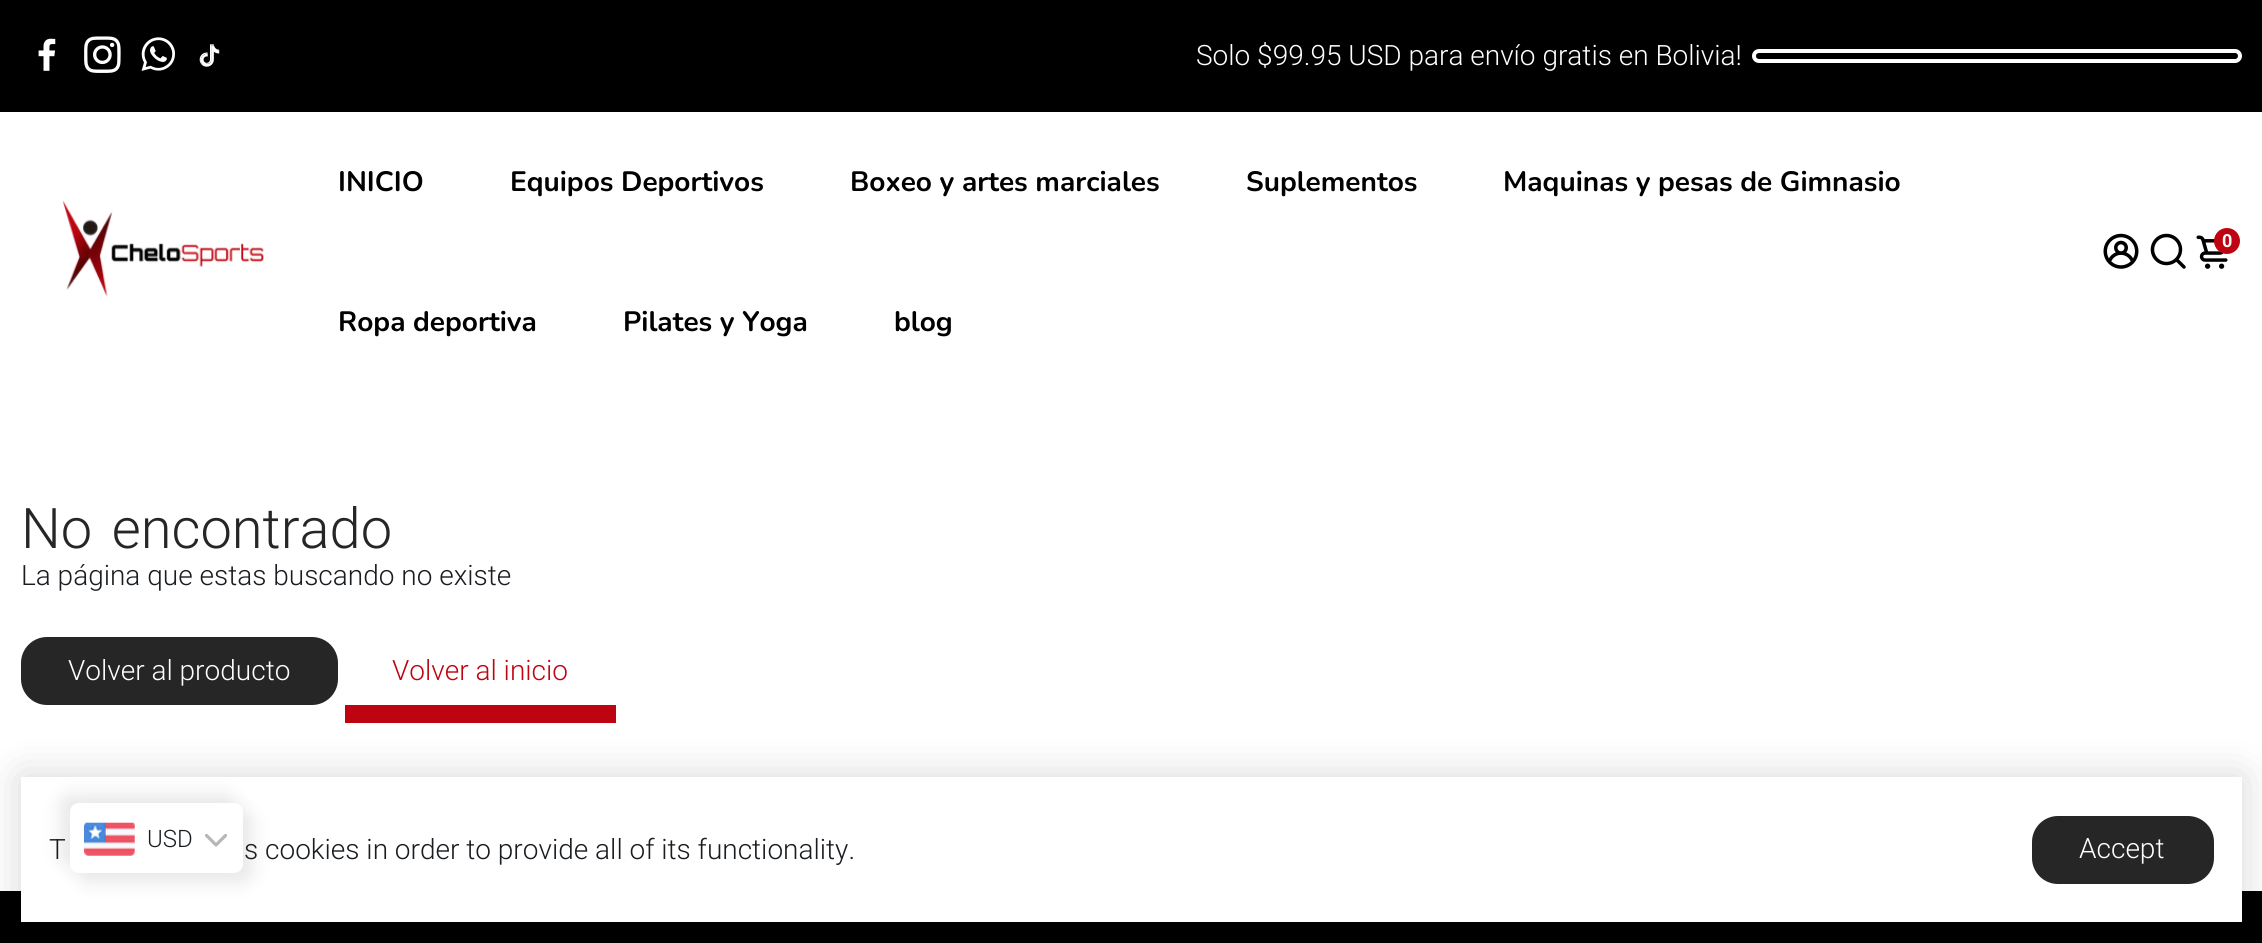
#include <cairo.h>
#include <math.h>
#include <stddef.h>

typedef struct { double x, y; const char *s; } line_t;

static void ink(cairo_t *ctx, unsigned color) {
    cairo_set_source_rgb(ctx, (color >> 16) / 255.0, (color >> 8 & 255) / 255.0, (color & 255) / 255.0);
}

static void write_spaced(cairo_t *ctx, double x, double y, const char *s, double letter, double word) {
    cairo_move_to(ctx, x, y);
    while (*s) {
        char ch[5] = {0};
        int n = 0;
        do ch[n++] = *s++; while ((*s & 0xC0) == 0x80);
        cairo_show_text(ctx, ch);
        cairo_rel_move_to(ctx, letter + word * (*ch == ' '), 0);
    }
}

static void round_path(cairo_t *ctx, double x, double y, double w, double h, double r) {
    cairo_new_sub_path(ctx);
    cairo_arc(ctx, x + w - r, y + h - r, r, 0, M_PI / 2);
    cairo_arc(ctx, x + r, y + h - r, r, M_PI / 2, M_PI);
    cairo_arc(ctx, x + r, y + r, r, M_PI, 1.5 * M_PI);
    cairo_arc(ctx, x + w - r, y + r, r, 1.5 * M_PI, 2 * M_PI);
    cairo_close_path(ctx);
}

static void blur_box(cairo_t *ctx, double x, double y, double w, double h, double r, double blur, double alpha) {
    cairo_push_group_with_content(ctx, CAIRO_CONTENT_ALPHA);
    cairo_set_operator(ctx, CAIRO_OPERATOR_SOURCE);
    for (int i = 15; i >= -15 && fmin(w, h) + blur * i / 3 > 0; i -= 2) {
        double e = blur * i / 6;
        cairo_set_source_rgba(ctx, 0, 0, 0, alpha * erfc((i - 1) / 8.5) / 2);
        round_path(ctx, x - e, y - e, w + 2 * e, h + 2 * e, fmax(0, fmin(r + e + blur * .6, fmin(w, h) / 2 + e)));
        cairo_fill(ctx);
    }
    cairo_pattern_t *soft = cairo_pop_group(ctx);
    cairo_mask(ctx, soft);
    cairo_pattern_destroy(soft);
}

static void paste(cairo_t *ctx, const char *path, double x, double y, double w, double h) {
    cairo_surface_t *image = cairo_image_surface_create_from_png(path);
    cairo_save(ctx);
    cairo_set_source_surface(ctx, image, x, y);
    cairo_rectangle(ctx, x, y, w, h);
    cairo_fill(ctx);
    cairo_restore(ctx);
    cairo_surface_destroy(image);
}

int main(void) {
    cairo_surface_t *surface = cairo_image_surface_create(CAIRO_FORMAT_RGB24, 2262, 943);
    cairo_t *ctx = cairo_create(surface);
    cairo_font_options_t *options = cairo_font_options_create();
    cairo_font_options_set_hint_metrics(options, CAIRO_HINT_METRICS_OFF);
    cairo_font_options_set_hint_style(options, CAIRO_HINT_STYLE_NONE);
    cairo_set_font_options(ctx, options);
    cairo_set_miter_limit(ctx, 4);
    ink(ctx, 0xFFFFFF);
    cairo_paint(ctx);
    ink(ctx, 0x000000);
    cairo_rectangle(ctx, 0, 0, 2262, 112);
    cairo_fill(ctx);
    paste(ctx, "media/1.png", 38, 38, 18, 33);
    paste(ctx, "media/2.png", 84, 36, 37, 37);
    paste(ctx, "media/3.png", 141, 37, 34, 34);
    paste(ctx, "media/4.png", 199, 44, 21, 23);
    cairo_select_font_face(ctx, "Roboto Light", CAIRO_FONT_SLANT_NORMAL, CAIRO_FONT_WEIGHT_NORMAL);
    cairo_set_font_size(ctx, 28);
    ink(ctx, 0xFFFFFF);
    cairo_move_to(ctx, 1196, 65);
    cairo_show_text(ctx, "Solo $99.95 USD para envío gratis en Bolivia!");
    round_path(ctx, 1754, 51, 486, 10, 5);
    cairo_set_line_width(ctx, 4);
    cairo_stroke(ctx);
    paste(ctx, "media/5.png", 62, 200, 202, 96);
    cairo_select_font_face(ctx, "Nunito", CAIRO_FONT_SLANT_NORMAL, CAIRO_FONT_WEIGHT_BOLD);
    ink(ctx, 0x000000);
    {
        static const line_t items[] = {
            {338, 191, "INICIO"},
            {510, 191, "Equipos Deportivos"},
            {850, 191, "Boxeo y artes marciales"},
            {1246, 191, "Suplementos"},
            {1503, 191, "Maquinas y pesas de Gimnasio"},
            {338, 331, "Ropa deportiva"},
            {623, 331, "Pilates y Yoga"},
            {894, 331, "blog"},
        };
        for (size_t i = 0; i < sizeof items / sizeof *items; i++) {
            cairo_move_to(ctx, items[i].x, items[i].y);
            cairo_show_text(ctx, items[i].s);
        }
    }
    paste(ctx, "media/6.png", 2103, 233, 36, 36);
    paste(ctx, "media/7.png", 2150, 233, 36, 36);
    paste(ctx, "media/8.png", 2196, 235, 32, 34);
    ink(ctx, 0xBF0411);
    cairo_arc(ctx, 2227, 241, 13, 0, 2 * M_PI);
    cairo_fill(ctx);
    cairo_select_font_face(ctx, "Roboto", CAIRO_FONT_SLANT_NORMAL, CAIRO_FONT_WEIGHT_BOLD);
    cairo_set_font_size(ctx, 18);
    ink(ctx, 0xFFFFFF);
    cairo_move_to(ctx, 2222, 247);
    cairo_show_text(ctx, "0");
    cairo_select_font_face(ctx, "Roboto Light", CAIRO_FONT_SLANT_NORMAL, CAIRO_FONT_WEIGHT_NORMAL);
    cairo_set_font_size(ctx, 56);
    ink(ctx, 0x262626);
    write_spaced(ctx, 21, 548, "No encontrado", 0, 6);
    cairo_set_font_size(ctx, 28);
    ink(ctx, 0x191D21);
    cairo_move_to(ctx, 21, 585);
    cairo_show_text(ctx, "La página que estas buscando no existe");
    ink(ctx, 0x262626);
    round_path(ctx, 21, 637, 317, 68, 26);
    cairo_fill(ctx);
    ink(ctx, 0xFFFFFF);
    cairo_move_to(ctx, 68, 680);
    cairo_show_text(ctx, "Volver al producto");
    ink(ctx, 0xBF0411);
    cairo_rectangle(ctx, 345, 705, 271, 18);
    cairo_fill(ctx);
    cairo_move_to(ctx, 392, 680);
    cairo_show_text(ctx, "Volver al inicio");
    ink(ctx, 0x000000);
    cairo_rectangle(ctx, 0, 891, 2262, 52);
    cairo_fill(ctx);
    ink(ctx, 0x000000);
    blur_box(ctx, 21, 777, 2221, 145, 0, 21, 0.16);
    ink(ctx, 0xFFFFFF);
    cairo_rectangle(ctx, 21, 777, 2221, 145);
    cairo_fill(ctx);
    ink(ctx, 0xE8E8E8);
    blur_box(ctx, 61, 795, 174, 70, 9, 9, 1);
    blur_box(ctx, 79, 812, 173, 70, 9, 9, 1);
    ink(ctx, 0xFFFFFF);
    round_path(ctx, 70, 803, 173, 70, 9);
    cairo_fill(ctx);
    paste(ctx, "media/9.png", 84, 822, 51, 34);
    cairo_set_font_size(ctx, 24);
    ink(ctx, 0x191D21);
    cairo_move_to(ctx, 147, 847);
    cairo_show_text(ctx, "USD");
    cairo_new_path(ctx);
    cairo_move_to(ctx, 206.5, 835.5);
    cairo_line_to(ctx, 216, 845);
    cairo_line_to(ctx, 225.5, 835.5);
    ink(ctx, 0xB7B7B7);
    cairo_set_line_width(ctx, 3.2);
    cairo_set_line_cap(ctx, CAIRO_LINE_CAP_ROUND);
    cairo_set_line_join(ctx, CAIRO_LINE_JOIN_ROUND);
    cairo_stroke(ctx);
    cairo_set_font_size(ctx, 28);
    ink(ctx, 0x191D21);
    cairo_move_to(ctx, 49, 859);
    cairo_show_text(ctx, "T");
    cairo_move_to(ctx, 244, 859);
    cairo_show_text(ctx, "s cookies in order to provide all of its functionality.");
    ink(ctx, 0x262626);
    round_path(ctx, 2032, 816, 182, 68, 26);
    cairo_fill(ctx);
    ink(ctx, 0xFFFFFF);
    cairo_move_to(ctx, 2079, 858);
    cairo_show_text(ctx, "Accept");
    cairo_surface_write_to_png(surface, "image.png");
    cairo_font_options_destroy(options);
    cairo_destroy(ctx);
    cairo_surface_destroy(surface);
    return 0;
}
